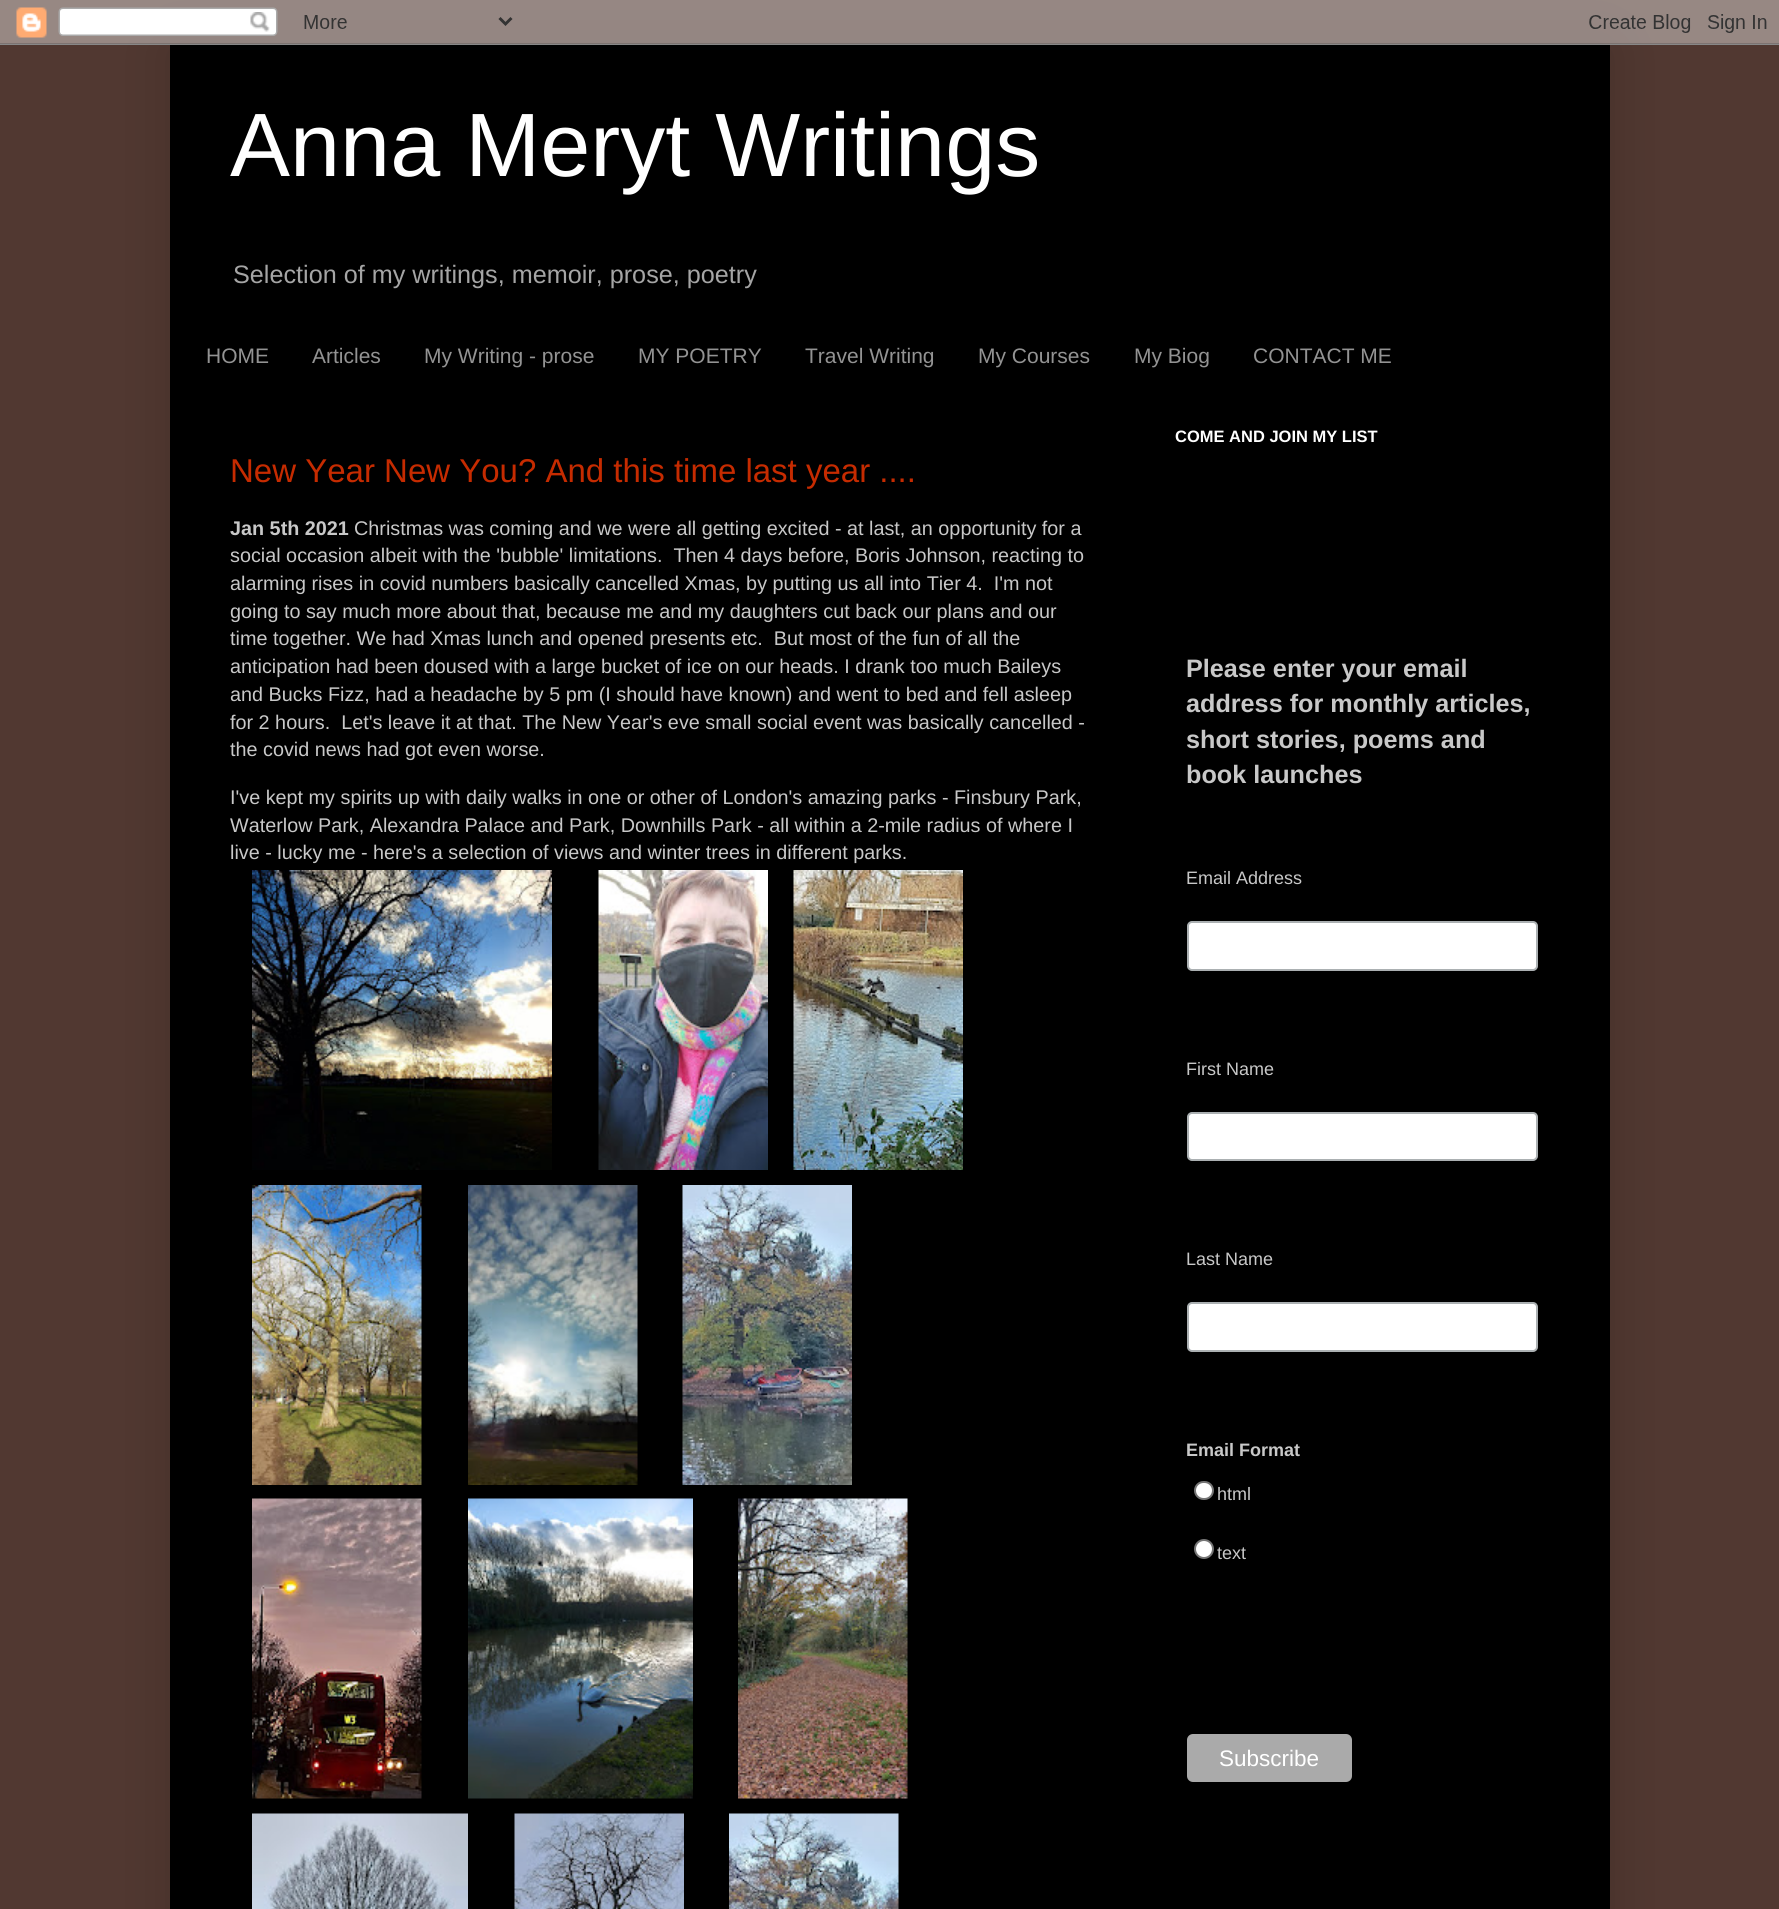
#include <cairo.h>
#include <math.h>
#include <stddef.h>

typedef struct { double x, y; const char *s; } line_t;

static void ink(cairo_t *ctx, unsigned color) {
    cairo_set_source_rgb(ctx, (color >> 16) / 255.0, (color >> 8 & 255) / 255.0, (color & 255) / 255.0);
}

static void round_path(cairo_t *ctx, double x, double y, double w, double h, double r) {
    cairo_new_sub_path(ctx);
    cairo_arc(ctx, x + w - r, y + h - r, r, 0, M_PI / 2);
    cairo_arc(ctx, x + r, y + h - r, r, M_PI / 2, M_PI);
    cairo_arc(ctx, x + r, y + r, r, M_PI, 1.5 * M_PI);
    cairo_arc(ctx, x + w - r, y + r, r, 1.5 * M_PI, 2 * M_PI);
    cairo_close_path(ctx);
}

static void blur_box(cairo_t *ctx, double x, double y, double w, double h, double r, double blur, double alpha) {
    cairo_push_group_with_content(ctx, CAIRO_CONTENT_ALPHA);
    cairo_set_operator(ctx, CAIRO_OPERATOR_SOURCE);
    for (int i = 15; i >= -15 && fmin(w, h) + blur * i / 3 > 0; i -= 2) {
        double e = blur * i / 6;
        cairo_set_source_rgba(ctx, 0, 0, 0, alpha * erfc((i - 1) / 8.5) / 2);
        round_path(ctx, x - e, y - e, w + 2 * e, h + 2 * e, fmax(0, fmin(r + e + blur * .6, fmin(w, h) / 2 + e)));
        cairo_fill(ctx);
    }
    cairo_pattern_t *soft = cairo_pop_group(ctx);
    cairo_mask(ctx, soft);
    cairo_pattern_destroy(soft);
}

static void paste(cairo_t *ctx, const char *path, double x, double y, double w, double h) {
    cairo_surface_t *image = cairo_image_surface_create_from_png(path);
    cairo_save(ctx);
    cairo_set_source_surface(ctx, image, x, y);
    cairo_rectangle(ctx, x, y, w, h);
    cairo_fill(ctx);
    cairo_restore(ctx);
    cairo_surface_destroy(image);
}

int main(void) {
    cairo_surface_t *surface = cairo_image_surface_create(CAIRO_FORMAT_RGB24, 1779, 1909);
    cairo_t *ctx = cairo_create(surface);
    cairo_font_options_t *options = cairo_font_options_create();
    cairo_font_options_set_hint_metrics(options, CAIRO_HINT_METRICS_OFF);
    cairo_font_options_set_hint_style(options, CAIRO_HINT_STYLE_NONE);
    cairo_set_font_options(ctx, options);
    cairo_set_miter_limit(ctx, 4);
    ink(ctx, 0x513831);
    cairo_paint(ctx);
    ink(ctx, 0x000000);
    blur_box(ctx, 170, 45, 1440, 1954, 0, 30, 0.15);
    paste(ctx, "media/1.png", 0, 0, 1779, 45);
    ink(ctx, 0x000000);
    cairo_rectangle(ctx, 170, 45, 1440, 1864);
    cairo_fill(ctx);
    cairo_select_font_face(ctx, "Liberation Sans", CAIRO_FONT_SLANT_NORMAL, CAIRO_FONT_WEIGHT_NORMAL);
    cairo_set_font_size(ctx, 90);
    ink(ctx, 0xFFFFFF);
    cairo_move_to(ctx, 230, 176);
    cairo_show_text(ctx, "Anna Meryt Writings");
    cairo_set_font_size(ctx, 25.2);
    ink(ctx, 0xA5A5A5);
    cairo_move_to(ctx, 233, 283);
    cairo_show_text(ctx, "Selection of my writings, memoir, prose, poetry");
    cairo_set_font_size(ctx, 21);
    ink(ctx, 0x939393);
    {
        static const line_t items[] = {
            {206, 363, "HOME"},
            {312, 363, "Articles"},
            {424, 363, "My Writing - prose"},
            {638, 363, "MY POETRY"},
            {805, 363, "Travel Writing"},
            {978, 363, "My Courses"},
            {1134, 363, "My Biog"},
            {1253, 363, "CONTACT ME"},
        };
        for (size_t i = 0; i < sizeof items / sizeof *items; i++) {
            cairo_move_to(ctx, items[i].x, items[i].y);
            cairo_show_text(ctx, items[i].s);
        }
    }
    cairo_set_font_size(ctx, 33);
    ink(ctx, 0xC62B00);
    cairo_move_to(ctx, 230, 482);
    cairo_show_text(ctx, "New Year New You? And this time last year ....");
    cairo_select_font_face(ctx, "Liberation Sans", CAIRO_FONT_SLANT_NORMAL, CAIRO_FONT_WEIGHT_BOLD);
    cairo_set_font_size(ctx, 19.8);
    ink(ctx, 0xC8C8C8);
    cairo_move_to(ctx, 230, 535);
    cairo_show_text(ctx, "Jan 5th 2021");
    cairo_select_font_face(ctx, "Liberation Sans", CAIRO_FONT_SLANT_NORMAL, CAIRO_FONT_WEIGHT_NORMAL);
    {
        static const line_t items[] = {
            {354, 535, "Christmas was coming and we were all getting excited - at last, an opportunity for a"},
            {230, 562, "social occasion albeit with the 'bubble' limitations.  Then 4 days before, Boris Johnson, reacting to"},
            {230, 590, "alarming rises in covid numbers basically cancelled Xmas, by putting us all into Tier 4.  I'm not"},
            {230, 618, "going to say much more about that, because me and my daughters cut back our plans and our"},
            {230, 645, "time together. We had Xmas lunch and opened presents etc.  But most of the fun of all the"},
            {230, 673, "anticipation had been doused with a large bucket of ice on our heads. I drank too much Baileys"},
            {230, 701, "and Bucks Fizz, had a headache by 5 pm (I should have known) and went to bed and fell asleep"},
            {230, 729, "for 2 hours.  Let's leave it at that. The New Year's eve small social event was basically cancelled -"},
            {230, 756, "the covid news had got even worse."},
            {230, 804, "I've kept my spirits up with daily walks in one or other of London's amazing parks - Finsbury Park,"},
            {230, 832, "Waterlow Park, Alexandra Palace and Park, Downhills Park - all within a 2-mile radius of where I"},
            {230, 859, "live - lucky me - here's a selection of views and winter trees in different parks."},
        };
        for (size_t i = 0; i < sizeof items / sizeof *items; i++) {
            cairo_move_to(ctx, items[i].x, items[i].y);
            cairo_show_text(ctx, items[i].s);
        }
    }
    paste(ctx, "media/2.png", 252, 870, 300, 300);
    paste(ctx, "media/3.png", 598, 870, 170, 300);
    paste(ctx, "media/4.png", 793, 870, 170, 300);
    paste(ctx, "media/5.png", 252, 1185, 170, 300);
    paste(ctx, "media/6.png", 468, 1185, 170, 300);
    paste(ctx, "media/7.png", 682, 1185, 170, 300);
    paste(ctx, "media/8.png", 252, 1498, 170, 301);
    paste(ctx, "media/9.png", 468, 1498, 225, 301);
    paste(ctx, "media/10.png", 738, 1498, 170, 301);
    paste(ctx, "media/11.png", 252, 1813, 216, 96);
    paste(ctx, "media/12.png", 514, 1813, 170, 96);
    paste(ctx, "media/13.png", 729, 1813, 170, 96);
    cairo_select_font_face(ctx, "Liberation Sans", CAIRO_FONT_SLANT_NORMAL, CAIRO_FONT_WEIGHT_BOLD);
    cairo_set_font_size(ctx, 16.5);
    ink(ctx, 0xFFFFFF);
    cairo_move_to(ctx, 1175, 442);
    cairo_show_text(ctx, "COME AND JOIN MY LIST");
    cairo_set_font_size(ctx, 25.2);
    ink(ctx, 0xC8C8C8);
    {
        static const line_t items[] = {
            {1186, 677, "Please enter your email"},
            {1186, 712, "address for monthly articles,"},
            {1186, 748, "short stories, poems and"},
            {1186, 783, "book launches"},
        };
        for (size_t i = 0; i < sizeof items / sizeof *items; i++) {
            cairo_move_to(ctx, items[i].x, items[i].y);
            cairo_show_text(ctx, items[i].s);
        }
    }
    cairo_select_font_face(ctx, "Liberation Sans", CAIRO_FONT_SLANT_NORMAL, CAIRO_FONT_WEIGHT_NORMAL);
    cairo_set_font_size(ctx, 18);
    cairo_move_to(ctx, 1186, 884);
    cairo_show_text(ctx, "Email Address");
    ink(ctx, 0xFFFFFF);
    round_path(ctx, 1188, 922, 349, 48, 4);
    cairo_fill_preserve(ctx);
    ink(ctx, 0xABB0B2);
    cairo_stroke(ctx);
    ink(ctx, 0xC8C8C8);
    cairo_move_to(ctx, 1186, 1075);
    cairo_show_text(ctx, "First Name");
    ink(ctx, 0xFFFFFF);
    round_path(ctx, 1188, 1113, 349, 47, 4);
    cairo_fill_preserve(ctx);
    ink(ctx, 0xABB0B2);
    cairo_stroke(ctx);
    ink(ctx, 0xC8C8C8);
    cairo_move_to(ctx, 1186, 1265);
    cairo_show_text(ctx, "Last Name");
    ink(ctx, 0xFFFFFF);
    round_path(ctx, 1188, 1303, 349, 48, 4);
    cairo_fill_preserve(ctx);
    ink(ctx, 0xABB0B2);
    cairo_stroke(ctx);
    cairo_select_font_face(ctx, "Liberation Sans", CAIRO_FONT_SLANT_NORMAL, CAIRO_FONT_WEIGHT_BOLD);
    ink(ctx, 0xC8C8C8);
    cairo_move_to(ctx, 1186, 1456);
    cairo_show_text(ctx, "Email Format");
    ink(ctx, 0xFFFFFF);
    round_path(ctx, 1195, 1482, 18, 17, 8.5);
    cairo_fill_preserve(ctx);
    ink(ctx, 0x767676);
    cairo_stroke(ctx);
    cairo_select_font_face(ctx, "Liberation Sans", CAIRO_FONT_SLANT_NORMAL, CAIRO_FONT_WEIGHT_NORMAL);
    ink(ctx, 0xC8C8C8);
    cairo_move_to(ctx, 1217, 1500);
    cairo_show_text(ctx, "html");
    ink(ctx, 0xFFFFFF);
    cairo_new_path(ctx);
    cairo_arc(ctx, 1204, 1549, 9, 0, 2 * M_PI);
    cairo_fill_preserve(ctx);
    ink(ctx, 0x767676);
    cairo_stroke(ctx);
    ink(ctx, 0xC8C8C8);
    cairo_move_to(ctx, 1217, 1559);
    cairo_show_text(ctx, "text");
    ink(ctx, 0xAAAAAA);
    round_path(ctx, 1187, 1734, 165, 48, 6);
    cairo_fill(ctx);
    cairo_set_font_size(ctx, 22.5);
    ink(ctx, 0xFFFFFF);
    cairo_move_to(ctx, 1219, 1766);
    cairo_show_text(ctx, "Subscribe");
    cairo_surface_write_to_png(surface, "image.png");
    cairo_font_options_destroy(options);
    cairo_destroy(ctx);
    cairo_surface_destroy(surface);
    return 0;
}
